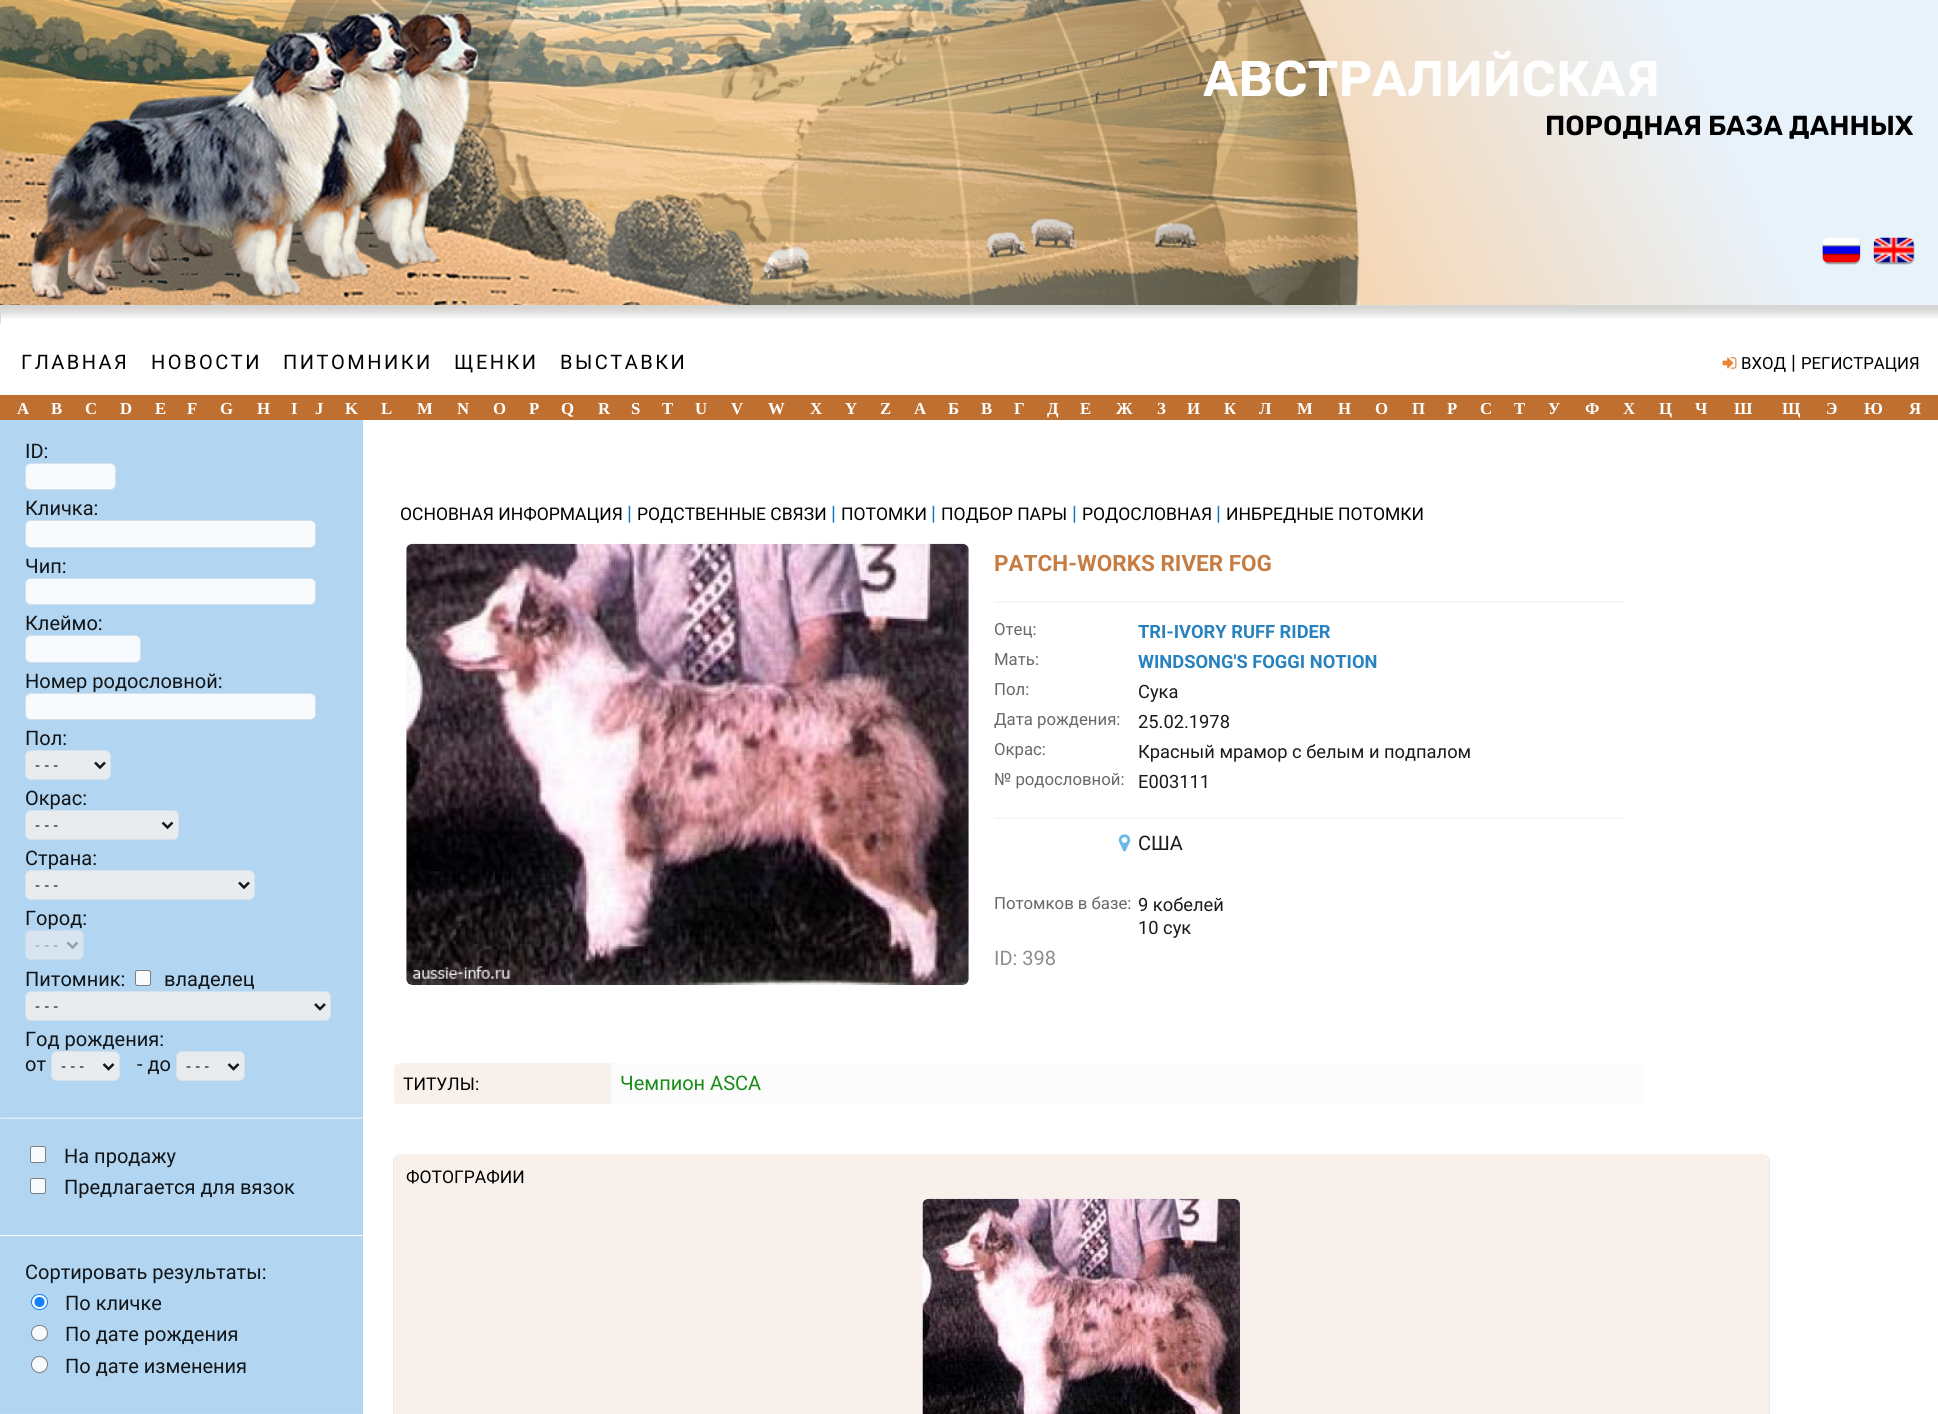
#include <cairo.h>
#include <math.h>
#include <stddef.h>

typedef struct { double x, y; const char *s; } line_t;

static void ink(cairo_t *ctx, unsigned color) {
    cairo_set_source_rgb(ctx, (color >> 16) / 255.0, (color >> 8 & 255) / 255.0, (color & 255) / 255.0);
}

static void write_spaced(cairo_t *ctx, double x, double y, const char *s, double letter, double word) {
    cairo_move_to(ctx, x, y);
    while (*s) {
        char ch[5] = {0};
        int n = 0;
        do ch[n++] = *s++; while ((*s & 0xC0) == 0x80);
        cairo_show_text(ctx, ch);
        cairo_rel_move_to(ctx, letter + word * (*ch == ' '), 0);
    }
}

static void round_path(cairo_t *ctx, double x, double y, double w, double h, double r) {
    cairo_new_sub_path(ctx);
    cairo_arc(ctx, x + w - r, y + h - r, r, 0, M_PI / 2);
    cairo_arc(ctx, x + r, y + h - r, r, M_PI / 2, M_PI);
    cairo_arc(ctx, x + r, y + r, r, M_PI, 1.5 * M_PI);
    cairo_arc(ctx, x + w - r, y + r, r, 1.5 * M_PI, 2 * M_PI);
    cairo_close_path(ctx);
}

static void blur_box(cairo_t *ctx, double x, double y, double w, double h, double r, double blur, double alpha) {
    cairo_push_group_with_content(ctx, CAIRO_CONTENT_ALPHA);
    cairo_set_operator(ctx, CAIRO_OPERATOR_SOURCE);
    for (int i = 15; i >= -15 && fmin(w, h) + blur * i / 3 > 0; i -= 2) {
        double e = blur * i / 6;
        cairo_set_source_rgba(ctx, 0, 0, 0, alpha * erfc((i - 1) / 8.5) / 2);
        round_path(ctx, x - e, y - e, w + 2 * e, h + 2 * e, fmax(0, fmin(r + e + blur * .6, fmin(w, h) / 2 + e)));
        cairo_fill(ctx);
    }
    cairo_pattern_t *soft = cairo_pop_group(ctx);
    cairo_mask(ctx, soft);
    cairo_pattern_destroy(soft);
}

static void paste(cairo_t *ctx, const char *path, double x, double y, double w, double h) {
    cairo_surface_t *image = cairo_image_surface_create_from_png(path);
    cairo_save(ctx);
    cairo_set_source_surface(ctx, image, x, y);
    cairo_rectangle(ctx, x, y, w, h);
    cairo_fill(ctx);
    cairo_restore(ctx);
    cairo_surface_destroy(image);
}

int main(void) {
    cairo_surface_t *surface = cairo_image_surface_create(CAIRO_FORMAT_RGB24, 1938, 1414);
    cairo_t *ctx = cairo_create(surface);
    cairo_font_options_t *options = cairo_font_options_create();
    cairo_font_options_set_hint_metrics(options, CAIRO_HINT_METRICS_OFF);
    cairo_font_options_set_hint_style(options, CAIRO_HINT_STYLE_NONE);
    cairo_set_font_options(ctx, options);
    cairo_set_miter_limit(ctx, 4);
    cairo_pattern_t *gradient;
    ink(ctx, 0xFFFFFF);
    cairo_paint(ctx);
    gradient = cairo_pattern_create_linear(115, 551, 1824, -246);
    cairo_pattern_add_color_stop_rgba(gradient, 0.6, 0.973, 0.812, 0.635, 1);
    cairo_pattern_add_color_stop_rgba(gradient, 0.87, 0.91, 0.949, 0.984, 1);
    cairo_set_source(ctx, gradient);
    cairo_pattern_destroy(gradient);
    cairo_rectangle(ctx, 1298, 0, 640, 305);
    cairo_fill(ctx);
    paste(ctx, "media/1.png", 0, 0, 1362, 305);
    cairo_select_font_face(ctx, "Rubik SemiBold", CAIRO_FONT_SLANT_NORMAL, CAIRO_FONT_WEIGHT_NORMAL);
    cairo_set_font_size(ctx, 50);
    ink(ctx, 0xFFFFFF);
    cairo_move_to(ctx, 1203, 96);
    cairo_show_text(ctx, "АВСТРАЛИЙСКАЯ");
    cairo_set_font_size(ctx, 27.5);
    ink(ctx, 0x000000);
    cairo_move_to(ctx, 1545, 135);
    cairo_show_text(ctx, "ПОРОДНАЯ БАЗА ДАННЫХ");
    ink(ctx, 0x000000);
    blur_box(ctx, 1823, 239, 37, 25, 6, 0.5, 0.2);
    blur_box(ctx, 1823, 239, 37, 25, 6, 0.5, 0.2);
    blur_box(ctx, 1874, 239, 40, 25, 6, 0.5, 0.2);
    paste(ctx, "media/2.png", 1822, 237, 38, 26);
    blur_box(ctx, 1874, 239, 40, 25, 6, 0.5, 0.2);
    paste(ctx, "media/3.png", 1873, 237, 41, 26);
    gradient = cairo_pattern_create_linear(969, 305, 969, 329);
    cairo_pattern_add_color_stop_rgba(gradient, 0.1, 0.835, 0.835, 0.831, 1);
    cairo_pattern_add_color_stop_rgba(gradient, 0.3, 0.882, 0.882, 0.878, 1);
    cairo_pattern_add_color_stop_rgba(gradient, 0.6, 1, 1, 1, 1);
    cairo_set_source(ctx, gradient);
    cairo_pattern_destroy(gradient);
    cairo_rectangle(ctx, 0, 305, 1938, 14);
    cairo_fill(ctx);
    paste(ctx, "media/4.png", 0, 311, 1, 13);
    cairo_select_font_face(ctx, "Roboto", CAIRO_FONT_SLANT_NORMAL, CAIRO_FONT_WEIGHT_NORMAL);
    cairo_set_font_size(ctx, 20);
    ink(ctx, 0x000000);
    {
        static const line_t items[] = {
            {21, 369, "ГЛАВНАЯ"},
            {151, 369, "НОВОСТИ"},
            {283, 369, "ПИТОМНИКИ"},
            {454, 369, "ЩЕНКИ"},
            {560, 369, "ВЫСТАВКИ"},
        };
        for (size_t i = 0; i < sizeof items / sizeof *items; i++) {
            write_spaced(ctx, items[i].x, items[i].y, items[i].s, 2.5, 0);
        }
    }
    paste(ctx, "media/5.png", 1722, 357, 15, 12);
    cairo_set_font_size(ctx, 16.75);
    cairo_move_to(ctx, 1741, 369);
    cairo_show_text(ctx, "ВХОД");
    cairo_set_font_size(ctx, 20);
    cairo_move_to(ctx, 1791, 369);
    cairo_show_text(ctx, "|");
    cairo_set_font_size(ctx, 16.75);
    cairo_move_to(ctx, 1801, 369);
    cairo_show_text(ctx, "РЕГИСТРАЦИЯ");
    ink(ctx, 0xBF6F2F);
    cairo_rectangle(ctx, 0, 395, 1938, 25);
    cairo_fill(ctx);
    cairo_select_font_face(ctx, "Liberation Serif", CAIRO_FONT_SLANT_NORMAL, CAIRO_FONT_WEIGHT_BOLD);
    ink(ctx, 0xFFFFFF);
    {
        static const line_t items[] = {
            {17, 414, "A"},
            {51, 414, "B"},
            {85, 414, "C"},
            {120, 414, "D"},
            {155, 414, "E"},
            {187, 414, "F"},
            {220, 414, "G"},
            {257, 414, "H"},
            {291, 414, "I"},
            {315, 414, "J"},
            {345, 414, "K"},
            {381, 414, "L"},
            {417, 414, "M"},
            {457, 414, "N"},
            {493, 414, "O"},
            {529, 414, "P"},
            {561, 414, "Q"},
            {598, 414, "R"},
            {631, 414, "S"},
            {662, 414, "T"},
            {695, 414, "U"},
            {731, 414, "V"},
            {768, 414, "W"},
            {810, 414, "X"},
            {845, 414, "Y"},
            {880, 414, "Z"},
            {914, 414, "А"},
            {948, 414, "Б"},
            {981, 414, "В"},
            {1014, 414, "Г"},
            {1047, 414, "Д"},
            {1080, 414, "Е"},
            {1116, 414, "Ж"},
            {1157, 414, "З"},
            {1187, 414, "И"},
            {1224, 414, "К"},
            {1259, 414, "Л"},
            {1297, 414, "М"},
            {1338, 414, "Н"},
            {1375, 414, "О"},
            {1412, 414, "П"},
            {1447, 414, "Р"},
            {1480, 414, "С"},
            {1514, 414, "Т"},
            {1548, 414, "У"},
            {1585, 414, "Ф"},
            {1623, 414, "Х"},
            {1659, 414, "Ц"},
            {1695, 414, "Ч"},
            {1734, 414, "Ш"},
            {1782, 414, "Щ"},
            {1826, 414, "Э"},
            {1864, 414, "Ю"},
            {1909, 414, "Я"},
        };
        for (size_t i = 0; i < sizeof items / sizeof *items; i++) {
            cairo_move_to(ctx, items[i].x, items[i].y);
            cairo_show_text(ctx, items[i].s);
        }
    }
    ink(ctx, 0xB2D5F1);
    cairo_rectangle(ctx, 0, 420, 363, 994);
    cairo_fill(ctx);
    cairo_select_font_face(ctx, "Roboto", CAIRO_FONT_SLANT_NORMAL, CAIRO_FONT_WEIGHT_NORMAL);
    cairo_set_font_size(ctx, 20);
    ink(ctx, 0x121518);
    cairo_move_to(ctx, 25, 458);
    cairo_show_text(ctx, "ID:");
    ink(ctx, 0xF7FBFE);
    round_path(ctx, 25.5, 463.5, 90, 26, 5.5);
    cairo_fill_preserve(ctx);
    ink(ctx, 0xD4E1EC);
    cairo_set_line_width(ctx, 1);
    cairo_stroke(ctx);
    ink(ctx, 0x121518);
    cairo_move_to(ctx, 25, 515);
    cairo_show_text(ctx, "Кличка:");
    ink(ctx, 0xF7FBFE);
    round_path(ctx, 25.5, 520.5, 290, 27, 5.5);
    cairo_fill_preserve(ctx);
    ink(ctx, 0xD4E1EC);
    cairo_stroke(ctx);
    ink(ctx, 0x121518);
    cairo_move_to(ctx, 25, 573);
    cairo_show_text(ctx, "Чип:");
    ink(ctx, 0xF7FBFE);
    round_path(ctx, 25.5, 578.5, 290, 26, 5.5);
    cairo_fill_preserve(ctx);
    ink(ctx, 0xD4E1EC);
    cairo_stroke(ctx);
    ink(ctx, 0x121518);
    cairo_move_to(ctx, 25, 630);
    cairo_show_text(ctx, "Клеймо:");
    ink(ctx, 0xF7FBFE);
    round_path(ctx, 25.5, 635.5, 115, 27, 5.5);
    cairo_fill_preserve(ctx);
    ink(ctx, 0xD4E1EC);
    cairo_stroke(ctx);
    ink(ctx, 0x121518);
    cairo_move_to(ctx, 25, 688);
    cairo_show_text(ctx, "Номер родословной:");
    ink(ctx, 0xF7FBFE);
    round_path(ctx, 25.5, 693.5, 290, 26, 5.5);
    cairo_fill_preserve(ctx);
    ink(ctx, 0xD4E1EC);
    cairo_stroke(ctx);
    ink(ctx, 0x121518);
    cairo_move_to(ctx, 25, 745);
    cairo_show_text(ctx, "Пол:");
    ink(ctx, 0xE9ECEF);
    round_path(ctx, 25.5, 750.5, 85, 29, 5.5);
    cairo_fill_preserve(ctx);
    ink(ctx, 0xD4E1EC);
    cairo_stroke(ctx);
    cairo_new_path(ctx);
    cairo_move_to(ctx, 95, 762.5);
    cairo_line_to(ctx, 100, 767.5);
    cairo_line_to(ctx, 105, 762.5);
    ink(ctx, 0x121518);
    cairo_set_line_width(ctx, 2.5);
    cairo_stroke(ctx);
    cairo_select_font_face(ctx, "Liberation Sans", CAIRO_FONT_SLANT_NORMAL, CAIRO_FONT_WEIGHT_NORMAL);
    cairo_set_font_size(ctx, 15);
    cairo_move_to(ctx, 35, 770);
    cairo_show_text(ctx, "- - -");
    cairo_select_font_face(ctx, "Roboto", CAIRO_FONT_SLANT_NORMAL, CAIRO_FONT_WEIGHT_NORMAL);
    cairo_set_font_size(ctx, 20);
    cairo_move_to(ctx, 25, 805);
    cairo_show_text(ctx, "Окрас:");
    ink(ctx, 0xE9ECEF);
    round_path(ctx, 25.5, 810.5, 153, 29, 5.5);
    cairo_fill_preserve(ctx);
    ink(ctx, 0xD4E1EC);
    cairo_set_line_width(ctx, 1);
    cairo_stroke(ctx);
    cairo_new_path(ctx);
    cairo_move_to(ctx, 162.5, 822.5);
    cairo_line_to(ctx, 167.5, 827.5);
    cairo_line_to(ctx, 172.5, 822.5);
    ink(ctx, 0x121518);
    cairo_set_line_width(ctx, 2.5);
    cairo_stroke(ctx);
    cairo_select_font_face(ctx, "Liberation Sans", CAIRO_FONT_SLANT_NORMAL, CAIRO_FONT_WEIGHT_NORMAL);
    cairo_set_font_size(ctx, 15);
    cairo_move_to(ctx, 35, 830);
    cairo_show_text(ctx, "- - -");
    cairo_select_font_face(ctx, "Roboto", CAIRO_FONT_SLANT_NORMAL, CAIRO_FONT_WEIGHT_NORMAL);
    cairo_set_font_size(ctx, 20);
    cairo_move_to(ctx, 25, 865);
    cairo_show_text(ctx, "Страна:");
    ink(ctx, 0xE9ECEF);
    round_path(ctx, 25.5, 870.5, 229, 29, 5.5);
    cairo_fill_preserve(ctx);
    ink(ctx, 0xD4E1EC);
    cairo_set_line_width(ctx, 1);
    cairo_stroke(ctx);
    cairo_new_path(ctx);
    cairo_move_to(ctx, 239, 882.5);
    cairo_line_to(ctx, 244, 887.5);
    cairo_line_to(ctx, 249, 882.5);
    ink(ctx, 0x121518);
    cairo_set_line_width(ctx, 2.5);
    cairo_stroke(ctx);
    cairo_select_font_face(ctx, "Liberation Sans", CAIRO_FONT_SLANT_NORMAL, CAIRO_FONT_WEIGHT_NORMAL);
    cairo_set_font_size(ctx, 15);
    cairo_move_to(ctx, 35, 890);
    cairo_show_text(ctx, "- - -");
    cairo_select_font_face(ctx, "Roboto", CAIRO_FONT_SLANT_NORMAL, CAIRO_FONT_WEIGHT_NORMAL);
    cairo_set_font_size(ctx, 20);
    cairo_move_to(ctx, 25, 925);
    cairo_show_text(ctx, "Город:");
    ink(ctx, 0xD8E5F0);
    round_path(ctx, 25.5, 930.5, 58, 29, 5.5);
    cairo_fill_preserve(ctx);
    ink(ctx, 0xCADDED);
    cairo_set_line_width(ctx, 1);
    cairo_stroke(ctx);
    cairo_new_path(ctx);
    cairo_move_to(ctx, 67.5, 942.5);
    cairo_line_to(ctx, 72.5, 947.5);
    cairo_line_to(ctx, 77.5, 942.5);
    ink(ctx, 0x939FAA);
    cairo_set_line_width(ctx, 2.5);
    cairo_stroke(ctx);
    cairo_select_font_face(ctx, "Liberation Sans", CAIRO_FONT_SLANT_NORMAL, CAIRO_FONT_WEIGHT_NORMAL);
    cairo_set_font_size(ctx, 15);
    cairo_move_to(ctx, 35, 950);
    cairo_show_text(ctx, "- - -");
    cairo_select_font_face(ctx, "Roboto", CAIRO_FONT_SLANT_NORMAL, CAIRO_FONT_WEIGHT_NORMAL);
    cairo_set_font_size(ctx, 20);
    ink(ctx, 0x121518);
    cairo_move_to(ctx, 25, 986);
    cairo_show_text(ctx, "Питомник:");
    ink(ctx, 0xF7FBFE);
    round_path(ctx, 135.5, 970.5, 15, 15, 2);
    cairo_fill_preserve(ctx);
    ink(ctx, 0x7C8082);
    cairo_set_line_width(ctx, 1);
    cairo_stroke(ctx);
    ink(ctx, 0x121518);
    cairo_move_to(ctx, 164, 986);
    cairo_show_text(ctx, "владелец");
    ink(ctx, 0xE9ECEF);
    round_path(ctx, 25.5, 991.5, 305, 29, 5.5);
    cairo_fill_preserve(ctx);
    ink(ctx, 0xD4E1EC);
    cairo_stroke(ctx);
    cairo_new_path(ctx);
    cairo_move_to(ctx, 315, 1004);
    cairo_line_to(ctx, 320, 1009);
    cairo_line_to(ctx, 325, 1004);
    ink(ctx, 0x121518);
    cairo_set_line_width(ctx, 2.5);
    cairo_stroke(ctx);
    cairo_select_font_face(ctx, "Liberation Sans", CAIRO_FONT_SLANT_NORMAL, CAIRO_FONT_WEIGHT_NORMAL);
    cairo_set_font_size(ctx, 15);
    cairo_move_to(ctx, 35, 1011);
    cairo_show_text(ctx, "- - -");
    cairo_select_font_face(ctx, "Roboto", CAIRO_FONT_SLANT_NORMAL, CAIRO_FONT_WEIGHT_NORMAL);
    cairo_set_font_size(ctx, 20);
    cairo_move_to(ctx, 25, 1046);
    cairo_show_text(ctx, "Год рождения:");
    cairo_move_to(ctx, 25, 1071);
    cairo_show_text(ctx, "от");
    ink(ctx, 0xE9ECEF);
    round_path(ctx, 51.5, 1051.5, 68, 29, 5.5);
    cairo_fill_preserve(ctx);
    ink(ctx, 0xD4E1EC);
    cairo_set_line_width(ctx, 1);
    cairo_stroke(ctx);
    cairo_new_path(ctx);
    cairo_move_to(ctx, 103.5, 1064);
    cairo_line_to(ctx, 108.5, 1069);
    cairo_line_to(ctx, 113.5, 1064);
    ink(ctx, 0x121518);
    cairo_set_line_width(ctx, 2.5);
    cairo_stroke(ctx);
    cairo_select_font_face(ctx, "Liberation Sans", CAIRO_FONT_SLANT_NORMAL, CAIRO_FONT_WEIGHT_NORMAL);
    cairo_set_font_size(ctx, 15);
    cairo_move_to(ctx, 61, 1071);
    cairo_show_text(ctx, "- - -");
    cairo_select_font_face(ctx, "Roboto", CAIRO_FONT_SLANT_NORMAL, CAIRO_FONT_WEIGHT_NORMAL);
    cairo_set_font_size(ctx, 20);
    cairo_move_to(ctx, 137, 1071);
    cairo_show_text(ctx, "- до");
    ink(ctx, 0xE9ECEF);
    round_path(ctx, 176.5, 1051.5, 68, 29, 5.5);
    cairo_fill_preserve(ctx);
    ink(ctx, 0xD4E1EC);
    cairo_set_line_width(ctx, 1);
    cairo_stroke(ctx);
    cairo_new_path(ctx);
    cairo_move_to(ctx, 228.5, 1064);
    cairo_line_to(ctx, 233.5, 1069);
    cairo_line_to(ctx, 238.5, 1064);
    ink(ctx, 0x121518);
    cairo_set_line_width(ctx, 2.5);
    cairo_stroke(ctx);
    cairo_select_font_face(ctx, "Liberation Sans", CAIRO_FONT_SLANT_NORMAL, CAIRO_FONT_WEIGHT_NORMAL);
    cairo_set_font_size(ctx, 15);
    cairo_move_to(ctx, 186, 1071);
    cairo_show_text(ctx, "- - -");
    paste(ctx, "media/6.png", 0, 1117, 363, 2);
    ink(ctx, 0xF7FBFE);
    round_path(ctx, 30.5, 1146.5, 15, 16, 2);
    cairo_fill_preserve(ctx);
    ink(ctx, 0x7C8082);
    cairo_set_line_width(ctx, 1);
    cairo_stroke(ctx);
    cairo_select_font_face(ctx, "Roboto", CAIRO_FONT_SLANT_NORMAL, CAIRO_FONT_WEIGHT_NORMAL);
    cairo_set_font_size(ctx, 20);
    ink(ctx, 0x121518);
    cairo_move_to(ctx, 64, 1163);
    cairo_show_text(ctx, "На продажу");
    ink(ctx, 0xF7FBFE);
    round_path(ctx, 30.5, 1178.5, 15, 15, 2);
    cairo_fill_preserve(ctx);
    ink(ctx, 0x7C8082);
    cairo_stroke(ctx);
    ink(ctx, 0x121518);
    cairo_move_to(ctx, 64, 1194);
    cairo_show_text(ctx, "Предлагается для вязок");
    paste(ctx, "media/7.png", 0, 1235, 363, 2);
    cairo_move_to(ctx, 25, 1279);
    cairo_show_text(ctx, "Сортировать результаты:");
    ink(ctx, 0xF7FBFE);
    round_path(ctx, 31.5, 1294.5, 16, 15, 7.5);
    cairo_fill_preserve(ctx);
    ink(ctx, 0x127FFE);
    cairo_stroke(ctx);
    cairo_arc(ctx, 39.5, 1302, 5, 0, 2 * M_PI);
    cairo_fill(ctx);
    ink(ctx, 0x121518);
    cairo_move_to(ctx, 65, 1310);
    cairo_show_text(ctx, "По кличке");
    ink(ctx, 0xF7FBFE);
    round_path(ctx, 31.5, 1325.5, 16, 15, 7.5);
    cairo_fill_preserve(ctx);
    ink(ctx, 0x7C8082);
    cairo_stroke(ctx);
    ink(ctx, 0x121518);
    cairo_move_to(ctx, 65, 1341);
    cairo_show_text(ctx, "По дате рождения");
    ink(ctx, 0xF7FBFE);
    cairo_new_path(ctx);
    cairo_arc(ctx, 39.5, 1364.5, 8, 0, 2 * M_PI);
    cairo_fill_preserve(ctx);
    ink(ctx, 0x7C8082);
    cairo_stroke(ctx);
    ink(ctx, 0x121518);
    cairo_move_to(ctx, 65, 1373);
    cairo_show_text(ctx, "По дате изменения");
    ink(ctx, 0xB7D8F2);
    cairo_rectangle(ctx, 1, 1413, 361, 1);
    cairo_fill(ctx);
    cairo_set_font_size(ctx, 17.5);
    ink(ctx, 0x000000);
    cairo_move_to(ctx, 400, 520);
    cairo_show_text(ctx, "ОСНОВНАЯ ИНФОРМАЦИЯ");
    cairo_set_font_size(ctx, 20);
    ink(ctx, 0x0F74B8);
    cairo_move_to(ctx, 627, 520);
    cairo_show_text(ctx, "|");
    cairo_set_font_size(ctx, 17.5);
    ink(ctx, 0x000000);
    cairo_move_to(ctx, 637, 520);
    cairo_show_text(ctx, "РОДСТВЕННЫЕ СВЯЗИ");
    cairo_set_font_size(ctx, 20);
    ink(ctx, 0x0F74B8);
    cairo_move_to(ctx, 831, 520);
    cairo_show_text(ctx, "|");
    cairo_set_font_size(ctx, 17.5);
    ink(ctx, 0x000000);
    cairo_move_to(ctx, 841, 520);
    cairo_show_text(ctx, "ПОТОМКИ");
    cairo_set_font_size(ctx, 20);
    ink(ctx, 0x0F74B8);
    cairo_move_to(ctx, 931, 520);
    cairo_show_text(ctx, "|");
    cairo_set_font_size(ctx, 17.5);
    ink(ctx, 0x000000);
    cairo_move_to(ctx, 941, 520);
    cairo_show_text(ctx, "ПОДБОР ПАРЫ");
    cairo_set_font_size(ctx, 20);
    ink(ctx, 0x0F74B8);
    cairo_move_to(ctx, 1072, 520);
    cairo_show_text(ctx, "|");
    cairo_set_font_size(ctx, 17.5);
    ink(ctx, 0x000000);
    cairo_move_to(ctx, 1082, 520);
    cairo_show_text(ctx, "РОДОСЛОВНАЯ");
    cairo_set_font_size(ctx, 20);
    ink(ctx, 0x0F74B8);
    cairo_move_to(ctx, 1216, 520);
    cairo_show_text(ctx, "|");
    cairo_set_font_size(ctx, 17.5);
    ink(ctx, 0x000000);
    cairo_move_to(ctx, 1226, 520);
    cairo_show_text(ctx, "ИНБРЕДНЫЕ ПОТОМКИ");
    paste(ctx, "media/8.png", 406, 543, 563, 442);
    cairo_select_font_face(ctx, "Roboto", CAIRO_FONT_SLANT_NORMAL, CAIRO_FONT_WEIGHT_BOLD);
    cairo_set_font_size(ctx, 22.5);
    ink(ctx, 0xC57D44);
    cairo_move_to(ctx, 994, 571);
    cairo_show_text(ctx, "PATCH-WORKS RIVER FOG");
    paste(ctx, "media/9.png", 994, 601, 631, 2);
    cairo_select_font_face(ctx, "Roboto", CAIRO_FONT_SLANT_NORMAL, CAIRO_FONT_WEIGHT_NORMAL);
    cairo_set_font_size(ctx, 16.75);
    ink(ctx, 0x686868);
    cairo_move_to(ctx, 994, 635);
    cairo_show_text(ctx, "Отец:");
    cairo_select_font_face(ctx, "Roboto", CAIRO_FONT_SLANT_NORMAL, CAIRO_FONT_WEIGHT_BOLD);
    cairo_set_font_size(ctx, 18.3);
    ink(ctx, 0x2782BF);
    cairo_move_to(ctx, 1138, 638);
    cairo_show_text(ctx, "TRI-IVORY RUFF RIDER");
    cairo_select_font_face(ctx, "Roboto", CAIRO_FONT_SLANT_NORMAL, CAIRO_FONT_WEIGHT_NORMAL);
    cairo_set_font_size(ctx, 16.75);
    ink(ctx, 0x686868);
    cairo_move_to(ctx, 994, 665);
    cairo_show_text(ctx, "Мать:");
    cairo_select_font_face(ctx, "Roboto", CAIRO_FONT_SLANT_NORMAL, CAIRO_FONT_WEIGHT_BOLD);
    cairo_set_font_size(ctx, 18.3);
    ink(ctx, 0x2782BF);
    cairo_move_to(ctx, 1138, 668);
    cairo_show_text(ctx, "WINDSONG'S FOGGI NOTION");
    cairo_select_font_face(ctx, "Roboto", CAIRO_FONT_SLANT_NORMAL, CAIRO_FONT_WEIGHT_NORMAL);
    cairo_set_font_size(ctx, 16.75);
    ink(ctx, 0x686868);
    cairo_move_to(ctx, 994, 695);
    cairo_show_text(ctx, "Пол:");
    cairo_set_font_size(ctx, 18.3);
    ink(ctx, 0x1A1A1A);
    cairo_move_to(ctx, 1138, 698);
    cairo_show_text(ctx, "Сука");
    cairo_set_font_size(ctx, 16.75);
    ink(ctx, 0x686868);
    cairo_move_to(ctx, 994, 725);
    cairo_show_text(ctx, "Дата рождения:");
    cairo_set_font_size(ctx, 18.3);
    ink(ctx, 0x1A1A1A);
    cairo_move_to(ctx, 1138, 728);
    cairo_show_text(ctx, "25.02.1978");
    cairo_set_font_size(ctx, 16.75);
    ink(ctx, 0x686868);
    cairo_move_to(ctx, 994, 755);
    cairo_show_text(ctx, "Окрас:");
    cairo_set_font_size(ctx, 18.3);
    ink(ctx, 0x1A1A1A);
    cairo_move_to(ctx, 1138, 758);
    cairo_show_text(ctx, "Красный мрамор с белым и подпалом");
    cairo_set_font_size(ctx, 16.75);
    ink(ctx, 0x686868);
    cairo_move_to(ctx, 994, 785);
    cairo_show_text(ctx, "№ родословной:");
    cairo_set_font_size(ctx, 18.3);
    ink(ctx, 0x1A1A1A);
    cairo_move_to(ctx, 1138, 788);
    cairo_show_text(ctx, "E003111");
    paste(ctx, "media/10.png", 994, 817, 631, 2);
    paste(ctx, "media/11.png", 1118, 834, 13, 18);
    cairo_set_font_size(ctx, 20);
    cairo_move_to(ctx, 1138, 850);
    cairo_show_text(ctx, "США");
    cairo_set_font_size(ctx, 16.75);
    ink(ctx, 0x686868);
    cairo_move_to(ctx, 994, 909);
    cairo_show_text(ctx, "Потомков в базе:");
    cairo_set_font_size(ctx, 18.3);
    ink(ctx, 0x1A1A1A);
    cairo_move_to(ctx, 1138, 911);
    cairo_show_text(ctx, "9 кобелей");
    cairo_move_to(ctx, 1138, 934);
    cairo_show_text(ctx, "10 сук");
    cairo_set_font_size(ctx, 20);
    ink(ctx, 0x8D8D8D);
    cairo_move_to(ctx, 994, 965);
    cairo_show_text(ctx, "ID: 398");
    ink(ctx, 0xF8F0EB);
    round_path(ctx, 394, 1063, 1250, 43, 6);
    cairo_fill(ctx);
    ink(ctx, 0xFFFFFF);
    cairo_rectangle(ctx, 394, 1104, 217, 2);
    cairo_fill(ctx);
    cairo_set_font_size(ctx, 17.5);
    ink(ctx, 0x000000);
    cairo_move_to(ctx, 403, 1090);
    cairo_show_text(ctx, "ТИТУЛЫ:");
    cairo_set_source_rgba(ctx, 0.992, 0.992, 0.996, 0.9);
    cairo_rectangle(ctx, 611, 1063, 1033, 43);
    cairo_fill(ctx);
    cairo_set_source_rgba(ctx, 1, 1, 1, 0.9);
    cairo_rectangle(ctx, 611, 1104, 1033, 2);
    cairo_fill(ctx);
    cairo_set_font_size(ctx, 20);
    ink(ctx, 0x198B18);
    cairo_move_to(ctx, 620, 1090);
    cairo_show_text(ctx, "Чемпион ASCA");
    ink(ctx, 0x000000);
    blur_box(ctx, 394, 1155, 1375, 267, 6, 0.5, 0.2);
    blur_box(ctx, 394, 1155, 1375, 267, 6, 0.5, 0.2);
    ink(ctx, 0xF8F0EB);
    round_path(ctx, 394, 1154, 1375, 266, 6);
    cairo_fill(ctx);
    cairo_set_font_size(ctx, 17.5);
    ink(ctx, 0x000000);
    cairo_move_to(ctx, 406, 1183);
    cairo_show_text(ctx, "ФОТОГРАФИИ");
    paste(ctx, "media/12.png", 922, 1198, 318, 216);
    cairo_surface_write_to_png(surface, "image.png");
    cairo_font_options_destroy(options);
    cairo_destroy(ctx);
    cairo_surface_destroy(surface);
    return 0;
}
